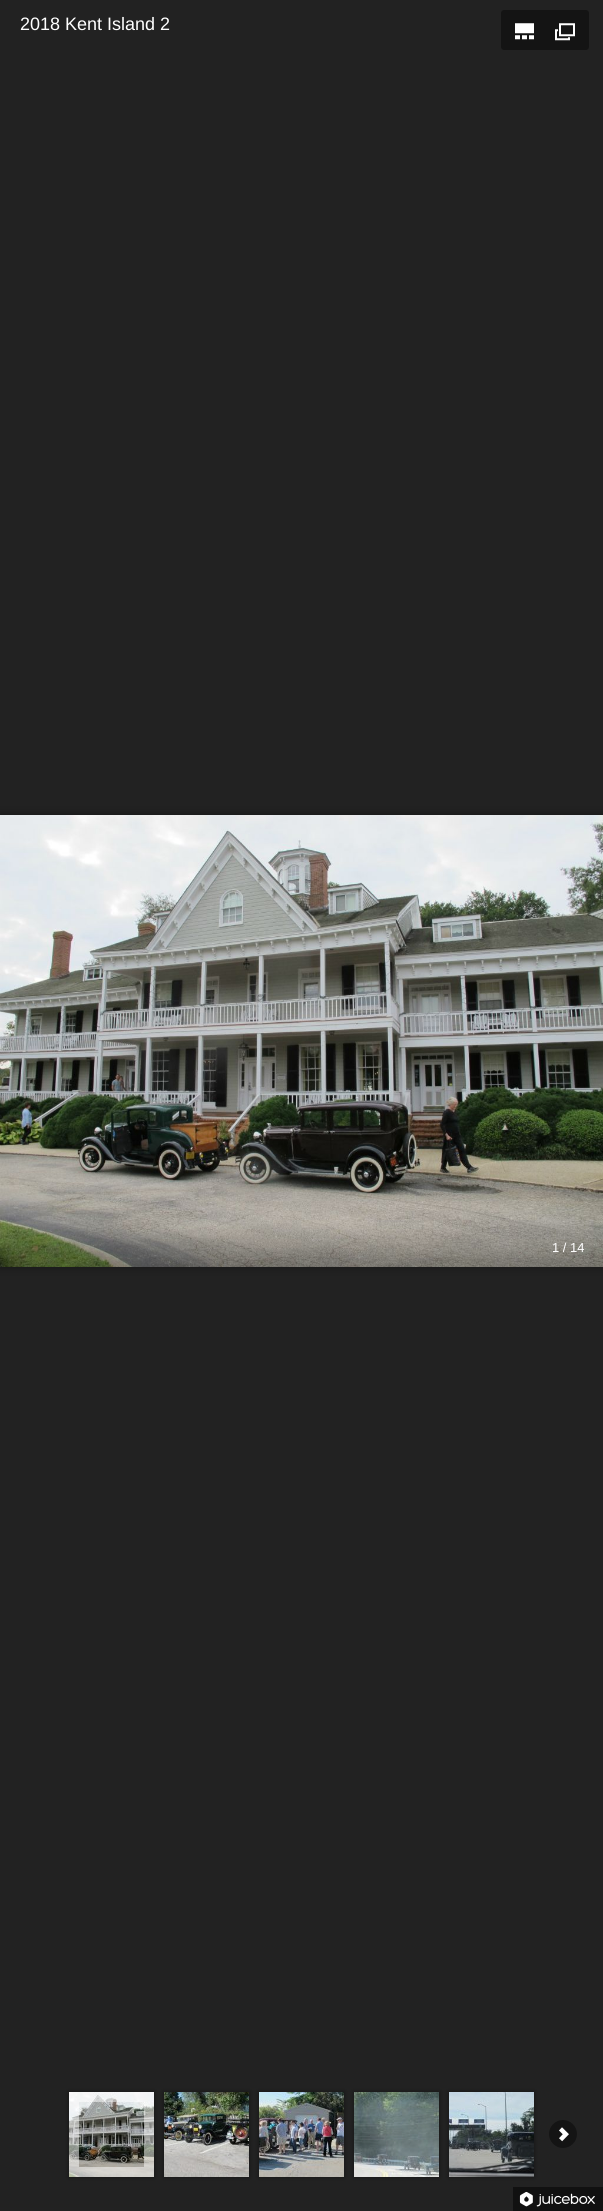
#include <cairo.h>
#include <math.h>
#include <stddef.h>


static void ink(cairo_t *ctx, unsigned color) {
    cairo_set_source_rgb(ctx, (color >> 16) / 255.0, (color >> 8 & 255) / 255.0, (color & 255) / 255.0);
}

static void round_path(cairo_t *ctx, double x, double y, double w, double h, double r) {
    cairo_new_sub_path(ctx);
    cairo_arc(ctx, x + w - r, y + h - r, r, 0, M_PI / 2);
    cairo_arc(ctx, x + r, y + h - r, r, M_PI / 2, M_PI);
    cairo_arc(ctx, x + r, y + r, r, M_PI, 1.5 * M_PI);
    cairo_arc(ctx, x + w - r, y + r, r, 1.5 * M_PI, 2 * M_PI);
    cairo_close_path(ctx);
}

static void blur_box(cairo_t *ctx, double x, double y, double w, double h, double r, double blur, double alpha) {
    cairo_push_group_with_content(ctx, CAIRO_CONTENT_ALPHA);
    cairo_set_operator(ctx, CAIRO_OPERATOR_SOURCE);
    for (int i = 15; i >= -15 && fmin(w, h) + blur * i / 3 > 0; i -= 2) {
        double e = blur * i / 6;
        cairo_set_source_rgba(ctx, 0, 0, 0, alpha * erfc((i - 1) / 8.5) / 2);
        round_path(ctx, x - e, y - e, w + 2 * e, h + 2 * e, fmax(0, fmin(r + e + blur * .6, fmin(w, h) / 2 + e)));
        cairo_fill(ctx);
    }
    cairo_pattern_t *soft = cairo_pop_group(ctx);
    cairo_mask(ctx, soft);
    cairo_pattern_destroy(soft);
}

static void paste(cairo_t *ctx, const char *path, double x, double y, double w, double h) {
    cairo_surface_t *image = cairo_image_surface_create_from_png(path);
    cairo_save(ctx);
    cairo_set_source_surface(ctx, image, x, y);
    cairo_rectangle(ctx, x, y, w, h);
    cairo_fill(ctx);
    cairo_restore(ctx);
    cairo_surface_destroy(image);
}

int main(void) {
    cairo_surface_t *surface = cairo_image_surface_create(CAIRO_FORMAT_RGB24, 603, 2211);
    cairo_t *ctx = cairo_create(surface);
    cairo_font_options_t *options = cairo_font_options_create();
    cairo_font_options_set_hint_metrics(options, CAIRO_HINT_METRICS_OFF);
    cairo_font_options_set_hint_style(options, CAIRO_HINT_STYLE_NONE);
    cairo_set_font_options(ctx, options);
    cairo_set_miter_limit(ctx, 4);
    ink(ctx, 0x222222);
    cairo_paint(ctx);
    cairo_select_font_face(ctx, "Liberation Sans", CAIRO_FONT_SLANT_NORMAL, CAIRO_FONT_WEIGHT_NORMAL);
    cairo_set_font_size(ctx, 18);
    ink(ctx, 0xFFFFFF);
    cairo_move_to(ctx, 20, 30);
    cairo_show_text(ctx, "2018 Kent Island 2");
    ink(ctx, 0x141414);
    round_path(ctx, 501, 10, 88, 40, 3);
    cairo_fill(ctx);
    paste(ctx, "media/1.png", 515, 23, 19, 17);
    paste(ctx, "media/2.png", 555, 23, 20, 18);
    ink(ctx, 0x000000);
    blur_box(ctx, 0, 815, 603, 452, 0, 5, 0.4);
    paste(ctx, "media/3.png", 0, 815, 603, 452);
    cairo_set_font_size(ctx, 13);
    ink(ctx, 0xFFFFFF);
    cairo_move_to(ctx, 552, 1252);
    cairo_show_text(ctx, "1 / 14");
    ink(ctx, 0x000000);
    blur_box(ctx, 69, 2092, 85, 85, 0, 2.5, 0.4);
    paste(ctx, "media/4.png", 69, 2092, 85, 85);
    cairo_rectangle(ctx, 74, 2097, 75, 75);
    cairo_set_source_rgba(ctx, 1, 1, 1, 0.5);
    cairo_set_line_width(ctx, 10);
    cairo_stroke(ctx);
    ink(ctx, 0x000000);
    blur_box(ctx, 164, 2092, 85, 85, 0, 2.5, 0.4);
    paste(ctx, "media/5.png", 164, 2092, 85, 85);
    blur_box(ctx, 259, 2092, 85, 85, 0, 2.5, 0.4);
    paste(ctx, "media/6.png", 259, 2092, 85, 85);
    blur_box(ctx, 354, 2092, 85, 85, 0, 2.5, 0.4);
    paste(ctx, "media/7.png", 354, 2092, 85, 85);
    blur_box(ctx, 449, 2092, 85, 85, 0, 2.5, 0.4);
    paste(ctx, "media/8.png", 449, 2092, 85, 85);
    ink(ctx, 0x141414);
    cairo_arc(ctx, 563, 2134, 14, 0, 2 * M_PI);
    cairo_fill(ctx);
    paste(ctx, "media/9.png", 559, 2127, 10, 15);
    paste(ctx, "media/10.png", 513, 2187, 90, 24);
    cairo_surface_write_to_png(surface, "image.png");
    cairo_font_options_destroy(options);
    cairo_destroy(ctx);
    cairo_surface_destroy(surface);
    return 0;
}
